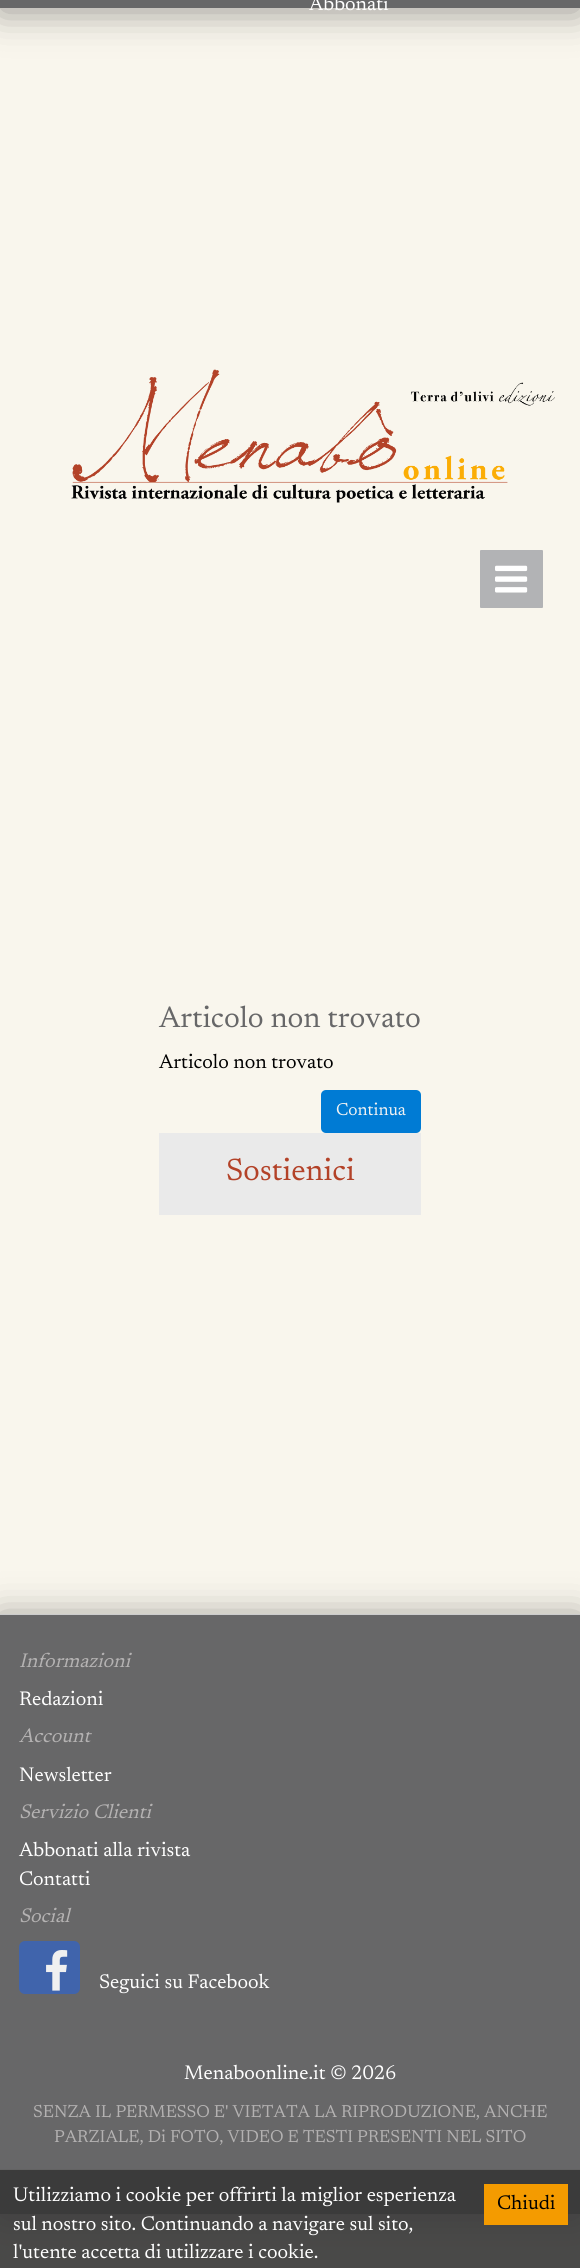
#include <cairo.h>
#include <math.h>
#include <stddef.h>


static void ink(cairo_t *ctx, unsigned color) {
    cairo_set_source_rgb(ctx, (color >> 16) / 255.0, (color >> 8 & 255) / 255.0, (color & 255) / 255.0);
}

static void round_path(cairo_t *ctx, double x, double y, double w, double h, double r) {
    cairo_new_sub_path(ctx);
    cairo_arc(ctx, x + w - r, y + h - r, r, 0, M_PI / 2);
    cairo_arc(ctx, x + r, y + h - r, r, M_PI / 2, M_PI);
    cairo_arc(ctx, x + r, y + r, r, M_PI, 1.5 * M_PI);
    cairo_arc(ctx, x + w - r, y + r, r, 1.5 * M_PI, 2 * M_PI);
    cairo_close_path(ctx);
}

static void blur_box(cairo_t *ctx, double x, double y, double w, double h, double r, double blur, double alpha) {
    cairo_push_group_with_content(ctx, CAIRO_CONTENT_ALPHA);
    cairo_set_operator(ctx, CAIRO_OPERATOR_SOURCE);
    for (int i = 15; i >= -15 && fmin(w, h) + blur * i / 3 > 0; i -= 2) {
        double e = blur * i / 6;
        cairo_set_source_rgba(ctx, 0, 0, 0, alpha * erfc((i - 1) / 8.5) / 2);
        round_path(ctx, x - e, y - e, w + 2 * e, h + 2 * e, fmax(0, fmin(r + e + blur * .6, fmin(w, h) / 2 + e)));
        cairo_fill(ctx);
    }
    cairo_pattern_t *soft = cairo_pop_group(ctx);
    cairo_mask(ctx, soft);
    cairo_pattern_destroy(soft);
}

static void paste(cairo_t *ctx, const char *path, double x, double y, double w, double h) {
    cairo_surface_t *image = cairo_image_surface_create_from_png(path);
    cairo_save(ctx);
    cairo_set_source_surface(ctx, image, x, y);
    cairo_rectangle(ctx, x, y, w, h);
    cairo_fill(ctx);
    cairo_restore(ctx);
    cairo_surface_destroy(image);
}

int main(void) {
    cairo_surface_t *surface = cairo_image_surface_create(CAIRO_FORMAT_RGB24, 580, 2268);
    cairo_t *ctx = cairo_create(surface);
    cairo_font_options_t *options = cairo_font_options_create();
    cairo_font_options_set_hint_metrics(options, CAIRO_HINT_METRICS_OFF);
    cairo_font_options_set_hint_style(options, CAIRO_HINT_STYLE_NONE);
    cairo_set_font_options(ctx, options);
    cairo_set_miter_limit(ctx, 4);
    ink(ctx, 0xF9F6ED);
    cairo_paint(ctx);
    ink(ctx, 0x323232);
    blur_box(ctx, 0, -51, 580, 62, 0, 19, 0.5);
    ink(ctx, 0x676768);
    cairo_rectangle(ctx, 0, 0, 580, 8);
    cairo_fill(ctx);
    cairo_select_font_face(ctx, "Newsreader", CAIRO_FONT_SLANT_NORMAL, CAIRO_FONT_WEIGHT_NORMAL);
    cairo_set_font_size(ctx, 20);
    ink(ctx, 0xFFFFFF);
    cairo_move_to(ctx, 309, 10);
    cairo_show_text(ctx, "Abbonati");
    paste(ctx, "media/1.png", 71, 369, 484, 134);
    ink(ctx, 0xB2B3B5);
    round_path(ctx, 480, 550, 63, 58, 1);
    cairo_fill(ctx);
    paste(ctx, "media/2.png", 495, 565, 33, 28);
    cairo_set_font_size(ctx, 30);
    ink(ctx, 0x676768);
    cairo_move_to(ctx, 159, 1027);
    cairo_show_text(ctx, "Articolo non trovato");
    cairo_set_font_size(ctx, 20);
    ink(ctx, 0x000000);
    cairo_move_to(ctx, 159, 1068);
    cairo_show_text(ctx, "Articolo non trovato");
    ink(ctx, 0x007BD4);
    round_path(ctx, 321, 1090, 100, 43, 5);
    cairo_fill(ctx);
    cairo_set_font_size(ctx, 17.5);
    ink(ctx, 0xF2F2F2);
    cairo_move_to(ctx, 336, 1115);
    cairo_show_text(ctx, "Continua");
    ink(ctx, 0xEAEAEA);
    cairo_rectangle(ctx, 159, 1133, 262, 82);
    cairo_fill(ctx);
    cairo_set_font_size(ctx, 31.25);
    ink(ctx, 0xB34228);
    cairo_move_to(ctx, 226, 1180);
    cairo_show_text(ctx, "Sostienici");
    ink(ctx, 0x323232);
    blur_box(ctx, 0, 1618, 580, 600, 0, 19, 0.5);
    ink(ctx, 0x676768);
    cairo_rectangle(ctx, 0, 1615, 580, 599);
    cairo_fill(ctx);
    ink(ctx, 0xCCCCCC);
    cairo_rectangle(ctx, 0, 1614, 580, 1);
    cairo_fill(ctx);
    cairo_select_font_face(ctx, "Newsreader", CAIRO_FONT_SLANT_ITALIC, CAIRO_FONT_WEIGHT_NORMAL);
    cairo_set_font_size(ctx, 20);
    ink(ctx, 0xB4B2B2);
    cairo_move_to(ctx, 19, 1667);
    cairo_show_text(ctx, "Informazioni");
    cairo_select_font_face(ctx, "Newsreader", CAIRO_FONT_SLANT_NORMAL, CAIRO_FONT_WEIGHT_NORMAL);
    ink(ctx, 0xFFFFFF);
    cairo_move_to(ctx, 19, 1705);
    cairo_show_text(ctx, "Redazioni");
    cairo_select_font_face(ctx, "Newsreader", CAIRO_FONT_SLANT_ITALIC, CAIRO_FONT_WEIGHT_NORMAL);
    ink(ctx, 0xB4B2B2);
    cairo_move_to(ctx, 19, 1742);
    cairo_show_text(ctx, "Account");
    cairo_select_font_face(ctx, "Newsreader", CAIRO_FONT_SLANT_NORMAL, CAIRO_FONT_WEIGHT_NORMAL);
    ink(ctx, 0xFFFFFF);
    cairo_move_to(ctx, 19, 1781);
    cairo_show_text(ctx, "Newsletter");
    cairo_select_font_face(ctx, "Newsreader", CAIRO_FONT_SLANT_ITALIC, CAIRO_FONT_WEIGHT_NORMAL);
    ink(ctx, 0xB4B2B2);
    cairo_move_to(ctx, 19, 1818);
    cairo_show_text(ctx, "Servizio Clienti");
    cairo_select_font_face(ctx, "Newsreader", CAIRO_FONT_SLANT_NORMAL, CAIRO_FONT_WEIGHT_NORMAL);
    ink(ctx, 0xFFFFFF);
    cairo_move_to(ctx, 19, 1856);
    cairo_show_text(ctx, "Abbonati alla rivista");
    cairo_move_to(ctx, 19, 1885);
    cairo_show_text(ctx, "Contatti");
    cairo_select_font_face(ctx, "Newsreader", CAIRO_FONT_SLANT_ITALIC, CAIRO_FONT_WEIGHT_NORMAL);
    ink(ctx, 0xB4B2B2);
    cairo_move_to(ctx, 19, 1922);
    cairo_show_text(ctx, "Social");
    ink(ctx, 0x4064AC);
    round_path(ctx, 19, 1941, 61, 53, 6);
    cairo_fill(ctx);
    paste(ctx, "media/3.png", 46, 1950, 22, 41);
    cairo_select_font_face(ctx, "Newsreader", CAIRO_FONT_SLANT_NORMAL, CAIRO_FONT_WEIGHT_NORMAL);
    ink(ctx, 0xFFFFFF);
    cairo_move_to(ctx, 99, 1988);
    cairo_show_text(ctx, "Seguici su Facebook");
    cairo_move_to(ctx, 184, 2079);
    cairo_show_text(ctx, "Menaboonline.it © 2026");
    cairo_set_font_size(ctx, 17.5);
    ink(ctx, 0xB4B2B2);
    cairo_move_to(ctx, 33, 2117);
    cairo_show_text(ctx, "SENZA IL PERMESSO E' VIETATA LA RIPRODUZIONE, ANCHE");
    cairo_move_to(ctx, 54, 2142);
    cairo_show_text(ctx, "PARZIALE, Di FOTO, VIDEO E TESTI PRESENTI NEL SITO");
    cairo_set_source_rgba(ctx, 0.216, 0.216, 0.216, 0.9);
    cairo_rectangle(ctx, 0, 2170, 580, 98);
    cairo_fill(ctx);
    ink(ctx, 0x636363);
    cairo_rectangle(ctx, 0, 2169, 580, 1);
    cairo_fill(ctx);
    cairo_set_font_size(ctx, 20);
    ink(ctx, 0xFFFFFF);
    cairo_move_to(ctx, 13, 2201);
    cairo_show_text(ctx, "Utilizziamo i cookie per offrirti la miglior esperienza");
    ink(ctx, 0xF49B00);
    cairo_rectangle(ctx, 484, 2184, 84, 41);
    cairo_fill(ctx);
    ink(ctx, 0x000000);
    cairo_move_to(ctx, 497, 2209);
    cairo_show_text(ctx, "Chiudi");
    ink(ctx, 0xFFFFFF);
    cairo_move_to(ctx, 13, 2230);
    cairo_show_text(ctx, "sul nostro sito. Continuando a navigare sul sito,");
    cairo_move_to(ctx, 13, 2258);
    cairo_show_text(ctx, "l'utente accetta di utilizzare i cookie.");
    cairo_surface_write_to_png(surface, "image.png");
    cairo_font_options_destroy(options);
    cairo_destroy(ctx);
    cairo_surface_destroy(surface);
    return 0;
}
